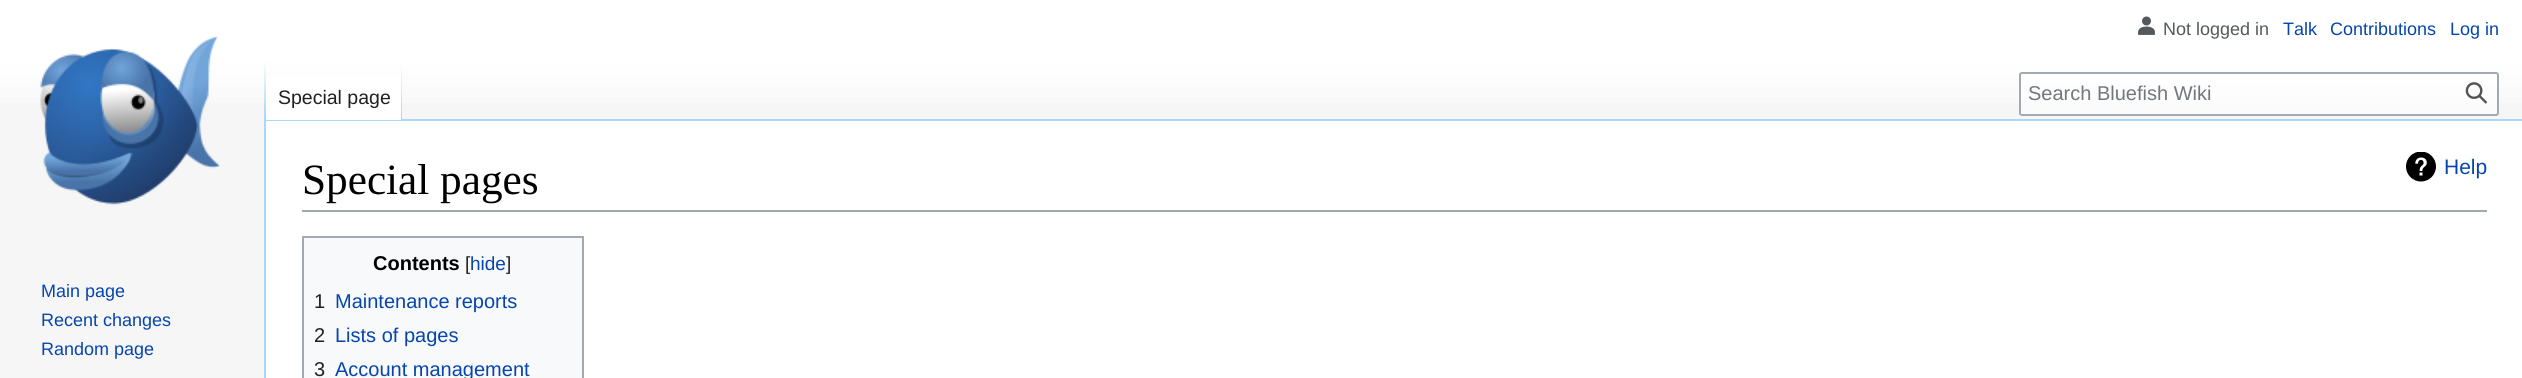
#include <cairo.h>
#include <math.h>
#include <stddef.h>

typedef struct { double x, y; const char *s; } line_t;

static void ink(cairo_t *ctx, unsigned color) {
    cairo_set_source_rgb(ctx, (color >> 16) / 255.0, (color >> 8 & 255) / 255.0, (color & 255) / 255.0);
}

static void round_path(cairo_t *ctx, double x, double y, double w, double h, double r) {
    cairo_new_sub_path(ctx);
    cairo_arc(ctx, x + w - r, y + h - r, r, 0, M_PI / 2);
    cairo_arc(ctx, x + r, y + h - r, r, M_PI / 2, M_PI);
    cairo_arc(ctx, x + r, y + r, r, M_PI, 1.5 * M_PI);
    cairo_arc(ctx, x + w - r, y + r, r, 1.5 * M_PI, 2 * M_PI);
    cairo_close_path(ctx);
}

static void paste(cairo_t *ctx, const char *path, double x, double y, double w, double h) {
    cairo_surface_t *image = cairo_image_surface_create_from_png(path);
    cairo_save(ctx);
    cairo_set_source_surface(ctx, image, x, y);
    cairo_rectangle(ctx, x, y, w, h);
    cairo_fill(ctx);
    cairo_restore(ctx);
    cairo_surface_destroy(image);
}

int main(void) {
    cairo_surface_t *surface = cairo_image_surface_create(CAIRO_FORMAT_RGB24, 2522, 378);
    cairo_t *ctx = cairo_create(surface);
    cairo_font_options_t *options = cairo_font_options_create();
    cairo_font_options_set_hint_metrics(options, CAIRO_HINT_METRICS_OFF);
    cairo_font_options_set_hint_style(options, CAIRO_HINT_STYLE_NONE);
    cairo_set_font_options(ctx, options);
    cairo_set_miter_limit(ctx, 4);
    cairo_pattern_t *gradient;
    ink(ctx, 0xF6F6F6);
    cairo_paint(ctx);
    gradient = cairo_pattern_create_linear(1262, 0, 1262, 120);
    cairo_pattern_add_color_stop_rgba(gradient, 0.5, 1, 1, 1, 1);
    cairo_pattern_add_color_stop_rgba(gradient, 1, 0.965, 0.965, 0.965, 1);
    cairo_set_source(ctx, gradient);
    cairo_pattern_destroy(gradient);
    cairo_rectangle(ctx, 0, 0, 2522, 103);
    cairo_fill(ctx);
    paste(ctx, "media/1.png", 2138, 16, 17, 19);
    cairo_select_font_face(ctx, "Liberation Sans", CAIRO_FONT_SLANT_NORMAL, CAIRO_FONT_WEIGHT_NORMAL);
    cairo_set_font_size(ctx, 18);
    ink(ctx, 0x54595D);
    cairo_move_to(ctx, 2163, 35);
    cairo_show_text(ctx, "Not logged in");
    ink(ctx, 0x0645AD);
    {
        static const line_t items[] = {
            {2283, 35, "Talk"},
            {2330, 35, "Contributions"},
            {2450, 35, "Log in"},
        };
        for (size_t i = 0; i < sizeof items / sizeof *items; i++) {
            cairo_move_to(ctx, items[i].x, items[i].y);
            cairo_show_text(ctx, items[i].s);
        }
    }
    ink(ctx, 0xA7D7F9);
    cairo_rectangle(ctx, 264, 119, 2258, 2);
    cairo_fill(ctx);
    cairo_rectangle(ctx, 264, 119, 2, 259);
    cairo_fill(ctx);
    gradient = cairo_pattern_create_linear(265, 60, 265, 120);
    cairo_pattern_add_color_stop_rgba(gradient, 0, 0.655, 0.843, 0.976, 0);
    cairo_pattern_add_color_stop_rgba(gradient, 1, 0.655, 0.843, 0.976, 1);
    cairo_set_source(ctx, gradient);
    cairo_pattern_destroy(gradient);
    cairo_rectangle(ctx, 264, 60, 2, 60);
    cairo_fill(ctx);
    ink(ctx, 0xFFFFFF);
    cairo_rectangle(ctx, 266, 77, 135, 43);
    cairo_fill(ctx);
    gradient = cairo_pattern_create_linear(401, 60, 401, 120);
    cairo_pattern_add_color_stop_rgba(gradient, 0, 1, 1, 1, 1);
    cairo_pattern_add_color_stop_rgba(gradient, 1, 0.655, 0.843, 0.976, 1);
    cairo_set_source(ctx, gradient);
    cairo_pattern_destroy(gradient);
    cairo_rectangle(ctx, 401, 60, 1, 60);
    cairo_fill(ctx);
    cairo_set_font_size(ctx, 19.5);
    ink(ctx, 0x202122);
    cairo_move_to(ctx, 278, 104);
    cairo_show_text(ctx, "Special page");
    cairo_set_source_rgba(ctx, 1, 1, 1, 0.5);
    round_path(ctx, 2020, 73, 478, 42, 2);
    cairo_fill_preserve(ctx);
    ink(ctx, 0xA2A9B1);
    cairo_stroke(ctx);
    cairo_set_font_size(ctx, 20);
    ink(ctx, 0x72777D);
    cairo_move_to(ctx, 2028, 100);
    cairo_show_text(ctx, "Search Bluefish Wiki");
    paste(ctx, "media/2.png", 2465, 82, 23, 22);
    paste(ctx, "media/3.png", 40, 35, 180, 170);
    cairo_set_font_size(ctx, 18);
    ink(ctx, 0x0645AD);
    {
        static const line_t items[] = {
            {41, 297, "Main page"},
            {41, 326, "Recent changes"},
            {41, 355, "Random page"},
        };
        for (size_t i = 0; i < sizeof items / sizeof *items; i++) {
            cairo_move_to(ctx, items[i].x, items[i].y);
            cairo_show_text(ctx, items[i].s);
        }
    }
    ink(ctx, 0xFFFFFF);
    cairo_rectangle(ctx, 266, 121, 2256, 257);
    cairo_fill(ctx);
    ink(ctx, 0xA2A9B1);
    cairo_rectangle(ctx, 302, 210, 2185, 2);
    cairo_fill(ctx);
    cairo_select_font_face(ctx, "Liberation Serif", CAIRO_FONT_SLANT_NORMAL, CAIRO_FONT_WEIGHT_NORMAL);
    cairo_set_font_size(ctx, 43.25);
    ink(ctx, 0x000000);
    cairo_move_to(ctx, 302, 194);
    cairo_show_text(ctx, "Special pages");
    paste(ctx, "media/4.png", 2406, 152, 30, 30);
    cairo_select_font_face(ctx, "Liberation Sans", CAIRO_FONT_SLANT_NORMAL, CAIRO_FONT_WEIGHT_NORMAL);
    cairo_set_font_size(ctx, 21);
    ink(ctx, 0x0645AD);
    cairo_move_to(ctx, 2444, 174);
    cairo_show_text(ctx, "Help");
    ink(ctx, 0xF8F9FA);
    cairo_rectangle(ctx, 303, 237, 280, 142);
    cairo_fill_preserve(ctx);
    ink(ctx, 0xA2A9B1);
    cairo_stroke(ctx);
    cairo_select_font_face(ctx, "Liberation Sans", CAIRO_FONT_SLANT_NORMAL, CAIRO_FONT_WEIGHT_BOLD);
    cairo_set_font_size(ctx, 20);
    ink(ctx, 0x000000);
    cairo_move_to(ctx, 373, 270);
    cairo_show_text(ctx, "Contents");
    cairo_select_font_face(ctx, "Liberation Sans", CAIRO_FONT_SLANT_NORMAL, CAIRO_FONT_WEIGHT_NORMAL);
    cairo_set_font_size(ctx, 19);
    ink(ctx, 0x202122);
    cairo_move_to(ctx, 465, 270);
    cairo_show_text(ctx, "[");
    ink(ctx, 0x0645AD);
    cairo_move_to(ctx, 470, 270);
    cairo_show_text(ctx, "hide");
    ink(ctx, 0x202122);
    cairo_move_to(ctx, 506, 270);
    cairo_show_text(ctx, "]");
    cairo_set_font_size(ctx, 20);
    cairo_move_to(ctx, 314, 308);
    cairo_show_text(ctx, "1");
    ink(ctx, 0x0645AD);
    cairo_move_to(ctx, 335, 308);
    cairo_show_text(ctx, "Maintenance reports");
    ink(ctx, 0x202122);
    cairo_move_to(ctx, 314, 342);
    cairo_show_text(ctx, "2");
    ink(ctx, 0x0645AD);
    cairo_move_to(ctx, 335, 342);
    cairo_show_text(ctx, "Lists of pages");
    ink(ctx, 0x202122);
    cairo_move_to(ctx, 314, 376);
    cairo_show_text(ctx, "3");
    ink(ctx, 0x0645AD);
    cairo_move_to(ctx, 335, 376);
    cairo_show_text(ctx, "Account management");
    cairo_surface_write_to_png(surface, "image.png");
    cairo_font_options_destroy(options);
    cairo_destroy(ctx);
    cairo_surface_destroy(surface);
    return 0;
}
